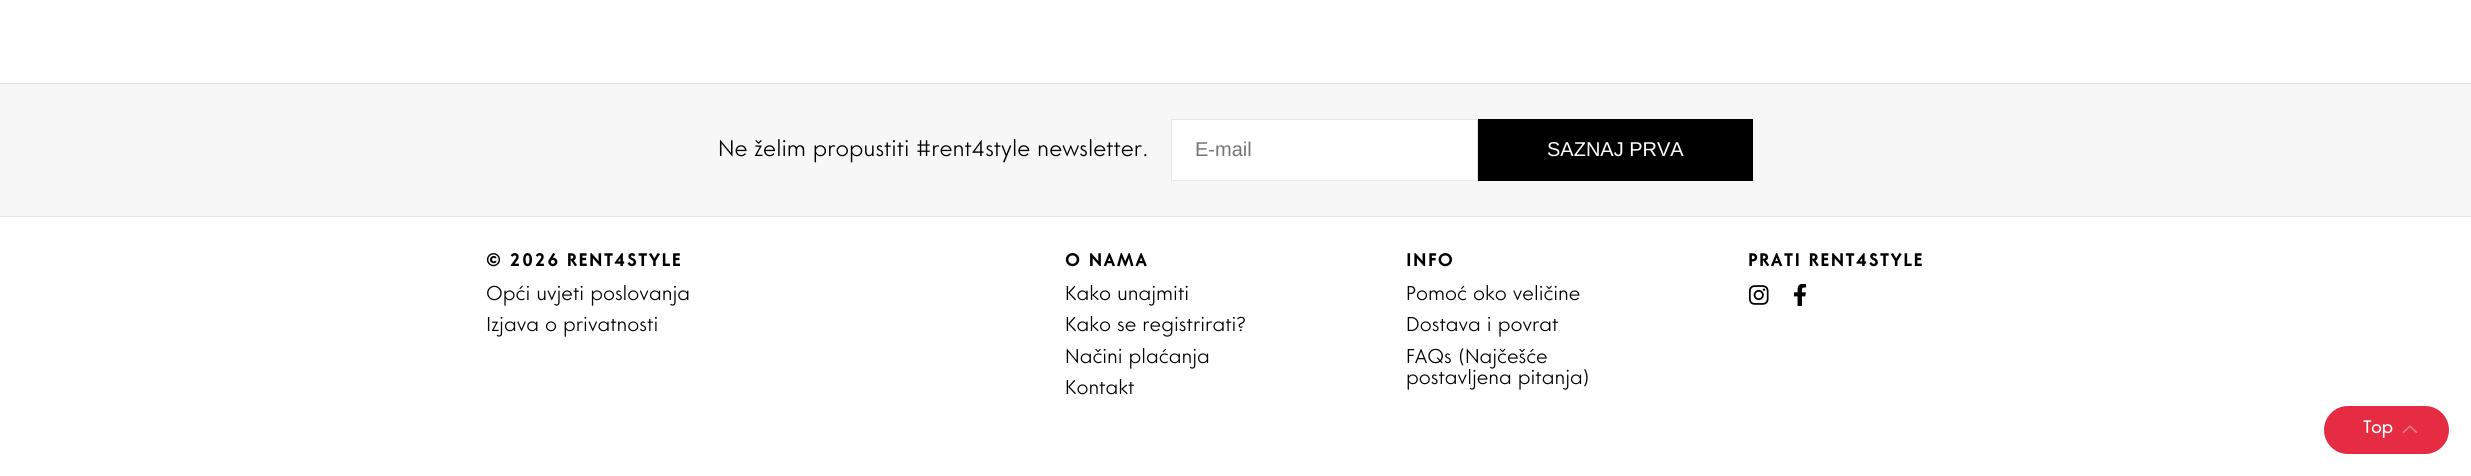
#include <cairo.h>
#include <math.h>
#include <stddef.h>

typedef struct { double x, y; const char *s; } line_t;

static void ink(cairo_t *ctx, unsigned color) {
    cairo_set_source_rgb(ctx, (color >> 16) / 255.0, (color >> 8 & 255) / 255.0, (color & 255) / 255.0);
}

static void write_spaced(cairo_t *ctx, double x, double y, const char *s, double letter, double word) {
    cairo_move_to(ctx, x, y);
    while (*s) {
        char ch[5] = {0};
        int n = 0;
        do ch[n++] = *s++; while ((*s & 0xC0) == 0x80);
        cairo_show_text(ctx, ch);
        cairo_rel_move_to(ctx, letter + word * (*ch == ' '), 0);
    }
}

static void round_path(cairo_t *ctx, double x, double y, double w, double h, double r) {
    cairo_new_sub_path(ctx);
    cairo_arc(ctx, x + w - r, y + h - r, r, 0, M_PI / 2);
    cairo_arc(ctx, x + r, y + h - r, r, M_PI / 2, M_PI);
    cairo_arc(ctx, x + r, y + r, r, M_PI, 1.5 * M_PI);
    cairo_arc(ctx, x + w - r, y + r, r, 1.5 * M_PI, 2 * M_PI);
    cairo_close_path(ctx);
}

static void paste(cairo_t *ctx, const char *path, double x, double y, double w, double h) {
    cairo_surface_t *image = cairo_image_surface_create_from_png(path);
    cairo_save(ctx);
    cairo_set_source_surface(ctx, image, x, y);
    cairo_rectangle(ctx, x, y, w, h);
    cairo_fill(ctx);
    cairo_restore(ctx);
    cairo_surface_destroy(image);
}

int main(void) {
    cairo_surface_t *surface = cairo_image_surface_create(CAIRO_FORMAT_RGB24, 2471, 476);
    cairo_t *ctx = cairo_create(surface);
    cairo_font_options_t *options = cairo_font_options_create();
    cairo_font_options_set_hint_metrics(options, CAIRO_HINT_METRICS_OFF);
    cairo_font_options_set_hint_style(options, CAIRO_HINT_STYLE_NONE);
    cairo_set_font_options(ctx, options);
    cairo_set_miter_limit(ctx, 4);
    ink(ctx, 0xFFFFFF);
    cairo_paint(ctx);
    ink(ctx, 0xF7F7F7);
    cairo_rectangle(ctx, 0, 84, 2471, 132);
    cairo_fill(ctx);
    ink(ctx, 0xDEDEDE);
    cairo_rectangle(ctx, 0, 83, 2471, 1);
    cairo_fill(ctx);
    cairo_select_font_face(ctx, "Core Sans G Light", CAIRO_FONT_SLANT_NORMAL, CAIRO_FONT_WEIGHT_NORMAL);
    cairo_set_font_size(ctx, 22.5);
    ink(ctx, 0x000000);
    cairo_move_to(ctx, 718, 156);
    cairo_show_text(ctx, "Ne želim propustiti #rent4style newsletter.");
    ink(ctx, 0xFFFFFF);
    cairo_rectangle(ctx, 1171.5, 119.5, 306, 61);
    cairo_fill_preserve(ctx);
    ink(ctx, 0xE6E6E6);
    cairo_set_line_width(ctx, 1);
    cairo_stroke(ctx);
    cairo_select_font_face(ctx, "Liberation Sans", CAIRO_FONT_SLANT_NORMAL, CAIRO_FONT_WEIGHT_NORMAL);
    cairo_set_font_size(ctx, 20);
    ink(ctx, 0x757575);
    cairo_move_to(ctx, 1195, 156);
    cairo_show_text(ctx, "E-mail");
    ink(ctx, 0x000000);
    cairo_rectangle(ctx, 1478, 119, 275, 62);
    cairo_fill(ctx);
    ink(ctx, 0xFFFFFF);
    cairo_move_to(ctx, 1547, 156);
    cairo_show_text(ctx, "SAZNAJ PRVA");
    ink(ctx, 0xE52C42);
    round_path(ctx, 2324, 406, 125, 48, 24);
    cairo_fill(ctx);
    cairo_select_font_face(ctx, "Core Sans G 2", CAIRO_FONT_SLANT_NORMAL, CAIRO_FONT_WEIGHT_BOLD);
    cairo_set_font_size(ctx, 17.5);
    ink(ctx, 0xFFFFFF);
    cairo_move_to(ctx, 2363, 433);
    cairo_show_text(ctx, "Top");
    paste(ctx, "media/1.png", 2402, 425, 16, 8);
    ink(ctx, 0xE6E6E6);
    cairo_rectangle(ctx, 0, 216, 2471, 1);
    cairo_fill(ctx);
    cairo_select_font_face(ctx, "Core Sans G", CAIRO_FONT_SLANT_NORMAL, CAIRO_FONT_WEIGHT_BOLD);
    ink(ctx, 0x000000);
    write_spaced(ctx, 486, 266, "© 2026 RENT4STYLE", 1.9, 0);
    cairo_select_font_face(ctx, "Core Sans G Light", CAIRO_FONT_SLANT_NORMAL, CAIRO_FONT_WEIGHT_NORMAL);
    cairo_set_font_size(ctx, 20);
    cairo_move_to(ctx, 486, 300);
    cairo_show_text(ctx, "Opći uvjeti poslovanja");
    cairo_move_to(ctx, 486, 331);
    cairo_show_text(ctx, "Izjava o privatnosti");
    cairo_select_font_face(ctx, "Core Sans G", CAIRO_FONT_SLANT_NORMAL, CAIRO_FONT_WEIGHT_BOLD);
    cairo_set_font_size(ctx, 17.5);
    write_spaced(ctx, 1065, 266, "O NAMA", 1.9, 0);
    cairo_select_font_face(ctx, "Core Sans G Light", CAIRO_FONT_SLANT_NORMAL, CAIRO_FONT_WEIGHT_NORMAL);
    cairo_set_font_size(ctx, 20);
    {
        static const line_t items[] = {
            {1065, 300, "Kako unajmiti"},
            {1065, 331, "Kako se registrirati?"},
            {1065, 363, "Načini plaćanja"},
            {1065, 394, "Kontakt"},
        };
        for (size_t i = 0; i < sizeof items / sizeof *items; i++) {
            cairo_move_to(ctx, items[i].x, items[i].y);
            cairo_show_text(ctx, items[i].s);
        }
    }
    cairo_select_font_face(ctx, "Core Sans G", CAIRO_FONT_SLANT_NORMAL, CAIRO_FONT_WEIGHT_BOLD);
    cairo_set_font_size(ctx, 17.5);
    write_spaced(ctx, 1406, 266, "INFO", 1.9, 0);
    cairo_select_font_face(ctx, "Core Sans G Light", CAIRO_FONT_SLANT_NORMAL, CAIRO_FONT_WEIGHT_NORMAL);
    cairo_set_font_size(ctx, 20);
    {
        static const line_t items[] = {
            {1406, 300, "Pomoć oko veličine"},
            {1406, 331, "Dostava i povrat"},
            {1406, 363, "FAQs (Najčešće"},
            {1406, 384, "postavljena pitanja)"},
        };
        for (size_t i = 0; i < sizeof items / sizeof *items; i++) {
            cairo_move_to(ctx, items[i].x, items[i].y);
            cairo_show_text(ctx, items[i].s);
        }
    }
    cairo_select_font_face(ctx, "Core Sans G", CAIRO_FONT_SLANT_NORMAL, CAIRO_FONT_WEIGHT_BOLD);
    cairo_set_font_size(ctx, 17.5);
    write_spaced(ctx, 1748, 266, "PRATI RENT4STYLE", 1.9, 0);
    paste(ctx, "media/2.png", 1748, 285, 21, 20);
    paste(ctx, "media/3.png", 1793, 284, 14, 22);
    cairo_surface_write_to_png(surface, "image.png");
    cairo_font_options_destroy(options);
    cairo_destroy(ctx);
    cairo_surface_destroy(surface);
    return 0;
}
